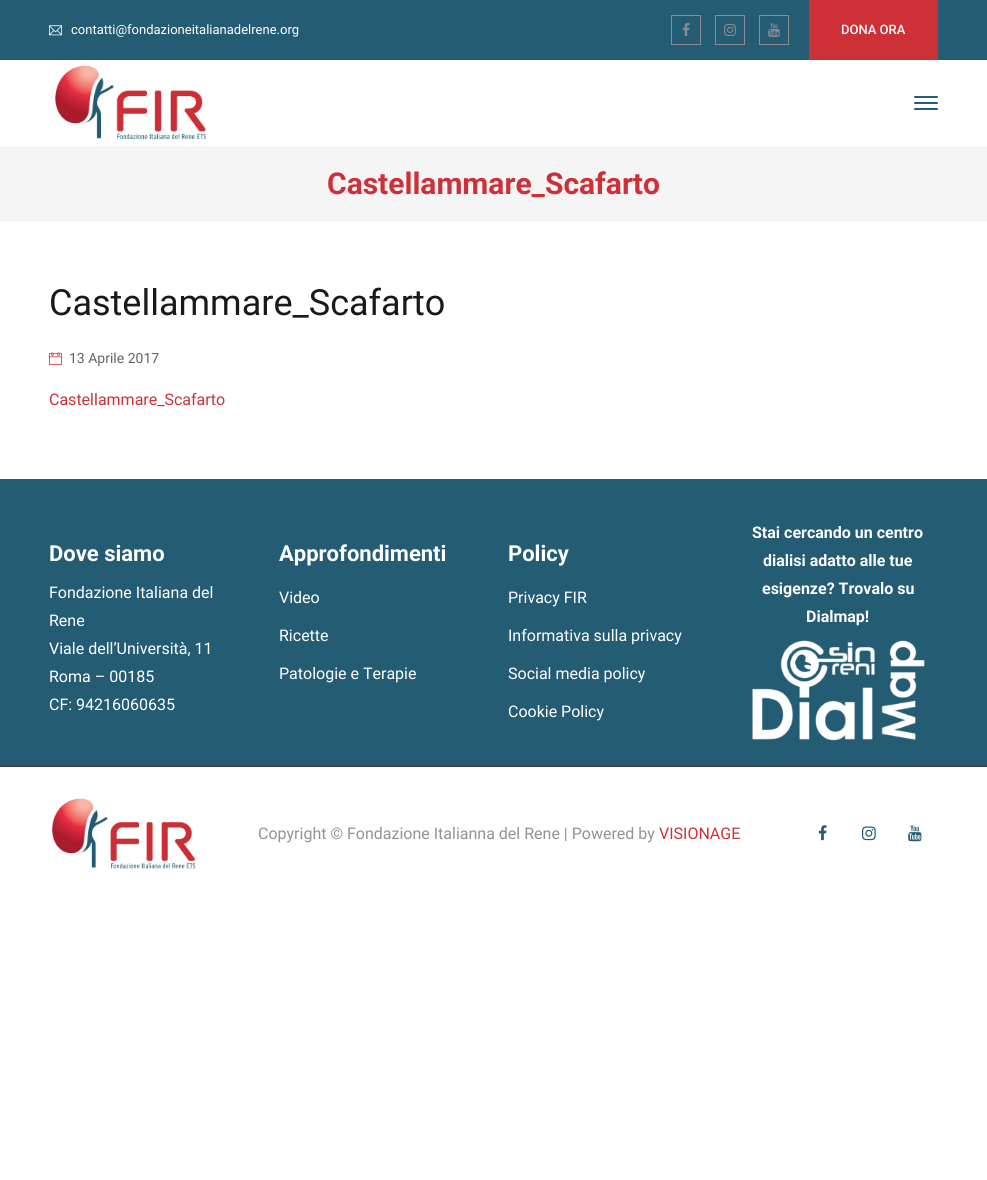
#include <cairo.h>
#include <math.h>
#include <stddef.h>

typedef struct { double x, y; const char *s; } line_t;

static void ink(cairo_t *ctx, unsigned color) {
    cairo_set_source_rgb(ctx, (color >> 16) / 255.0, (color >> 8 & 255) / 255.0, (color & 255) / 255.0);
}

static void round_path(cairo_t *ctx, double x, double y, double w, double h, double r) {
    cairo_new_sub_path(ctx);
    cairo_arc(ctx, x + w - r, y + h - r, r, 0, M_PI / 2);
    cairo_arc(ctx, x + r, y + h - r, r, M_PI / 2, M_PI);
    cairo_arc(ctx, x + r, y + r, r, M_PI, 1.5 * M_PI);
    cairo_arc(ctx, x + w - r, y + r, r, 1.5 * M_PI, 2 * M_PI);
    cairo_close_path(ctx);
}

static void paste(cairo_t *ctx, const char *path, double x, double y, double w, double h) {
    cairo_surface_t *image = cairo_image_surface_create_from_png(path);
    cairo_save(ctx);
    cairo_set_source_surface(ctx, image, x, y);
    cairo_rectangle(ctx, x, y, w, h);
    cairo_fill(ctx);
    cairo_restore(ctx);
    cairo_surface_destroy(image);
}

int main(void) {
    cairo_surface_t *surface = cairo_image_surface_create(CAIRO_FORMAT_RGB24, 987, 1180);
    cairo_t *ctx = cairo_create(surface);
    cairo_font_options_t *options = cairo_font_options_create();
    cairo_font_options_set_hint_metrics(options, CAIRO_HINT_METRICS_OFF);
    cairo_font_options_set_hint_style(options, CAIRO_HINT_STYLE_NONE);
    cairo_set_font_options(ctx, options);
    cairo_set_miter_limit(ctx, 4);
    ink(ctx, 0xFFFFFF);
    cairo_paint(ctx);
    ink(ctx, 0x235C73);
    cairo_rectangle(ctx, 0, 0, 987, 60);
    cairo_fill(ctx);
    paste(ctx, "media/1.png", 49, 25, 13, 11);
    cairo_select_font_face(ctx, "Roboto", CAIRO_FONT_SLANT_NORMAL, CAIRO_FONT_WEIGHT_NORMAL);
    cairo_set_font_size(ctx, 13);
    ink(ctx, 0xFFFFFF);
    cairo_move_to(ctx, 71, 34);
    cairo_show_text(ctx, "contatti@fondazioneitalianadelrene.org");
    cairo_rectangle(ctx, 671.5, 15.5, 29, 29);
    ink(ctx, 0x8C8C8C);
    cairo_set_line_width(ctx, 1);
    cairo_stroke(ctx);
    paste(ctx, "media/2.png", 682, 23, 8, 13);
    cairo_rectangle(ctx, 715.5, 15.5, 29, 29);
    cairo_stroke(ctx);
    paste(ctx, "media/3.png", 724, 24, 12, 12);
    cairo_rectangle(ctx, 759.5, 15.5, 29, 29);
    cairo_stroke(ctx);
    paste(ctx, "media/4.png", 768, 23, 12, 14);
    ink(ctx, 0xCD3137);
    cairo_rectangle(ctx, 809, 0, 129, 60);
    cairo_fill(ctx);
    cairo_select_font_face(ctx, "Roboto Medium", CAIRO_FONT_SLANT_NORMAL, CAIRO_FONT_WEIGHT_NORMAL);
    ink(ctx, 0xFFFFFF);
    cairo_move_to(ctx, 841, 34);
    cairo_show_text(ctx, "DONA ORA");
    paste(ctx, "media/5.png", 55, 65, 151, 75);
    ink(ctx, 0x235C73);
    round_path(ctx, 914, 96, 24, 2, 1);
    cairo_fill(ctx);
    round_path(ctx, 914, 102, 24, 2, 1);
    cairo_fill(ctx);
    round_path(ctx, 914, 108, 24, 2, 1);
    cairo_fill(ctx);
    ink(ctx, 0xF5F5F5);
    cairo_rectangle(ctx, 0, 146, 987, 76);
    cairo_fill(ctx);
    cairo_select_font_face(ctx, "Roboto", CAIRO_FONT_SLANT_NORMAL, CAIRO_FONT_WEIGHT_BOLD);
    cairo_set_font_size(ctx, 30);
    ink(ctx, 0xCD3137);
    cairo_move_to(ctx, 327, 194);
    cairo_show_text(ctx, "Castellammare_Scafarto");
    cairo_select_font_face(ctx, "Roboto", CAIRO_FONT_SLANT_NORMAL, CAIRO_FONT_WEIGHT_NORMAL);
    cairo_set_font_size(ctx, 36);
    ink(ctx, 0x191919);
    cairo_move_to(ctx, 49, 315);
    cairo_show_text(ctx, "Castellammare_Scafarto");
    paste(ctx, "media/6.png", 49, 352, 13, 13);
    cairo_set_font_size(ctx, 14);
    ink(ctx, 0x646464);
    cairo_move_to(ctx, 69, 363);
    cairo_show_text(ctx, "13 Aprile 2017");
    cairo_set_font_size(ctx, 16);
    ink(ctx, 0xCD3137);
    cairo_move_to(ctx, 49, 405);
    cairo_show_text(ctx, "Castellammare_Scafarto");
    ink(ctx, 0x235C73);
    cairo_rectangle(ctx, 0, 479, 987, 287);
    cairo_fill(ctx);
    cairo_select_font_face(ctx, "Roboto", CAIRO_FONT_SLANT_NORMAL, CAIRO_FONT_WEIGHT_BOLD);
    cairo_set_font_size(ctx, 22);
    ink(ctx, 0xFFFFFF);
    cairo_move_to(ctx, 49, 561);
    cairo_show_text(ctx, "Dove siamo");
    cairo_select_font_face(ctx, "Roboto", CAIRO_FONT_SLANT_NORMAL, CAIRO_FONT_WEIGHT_NORMAL);
    cairo_set_font_size(ctx, 16);
    {
        static const line_t items[] = {
            {49, 598, "Fondazione Italiana del"},
            {49, 626, "Rene"},
            {49, 654, "Viale dell’Università, 11"},
            {49, 682, "Roma – 00185"},
            {49, 710, "CF: 94216060635"},
        };
        for (size_t i = 0; i < sizeof items / sizeof *items; i++) {
            cairo_move_to(ctx, items[i].x, items[i].y);
            cairo_show_text(ctx, items[i].s);
        }
    }
    cairo_select_font_face(ctx, "Roboto", CAIRO_FONT_SLANT_NORMAL, CAIRO_FONT_WEIGHT_BOLD);
    cairo_set_font_size(ctx, 22);
    cairo_move_to(ctx, 279, 561);
    cairo_show_text(ctx, "Approfondimenti");
    cairo_select_font_face(ctx, "Roboto", CAIRO_FONT_SLANT_NORMAL, CAIRO_FONT_WEIGHT_NORMAL);
    cairo_set_font_size(ctx, 16);
    {
        static const line_t items[] = {
            {279, 603, "Video"},
            {279, 641, "Ricette"},
            {279, 679, "Patologie e Terapie"},
        };
        for (size_t i = 0; i < sizeof items / sizeof *items; i++) {
            cairo_move_to(ctx, items[i].x, items[i].y);
            cairo_show_text(ctx, items[i].s);
        }
    }
    cairo_select_font_face(ctx, "Roboto", CAIRO_FONT_SLANT_NORMAL, CAIRO_FONT_WEIGHT_BOLD);
    cairo_set_font_size(ctx, 22);
    cairo_move_to(ctx, 508, 561);
    cairo_show_text(ctx, "Policy");
    cairo_select_font_face(ctx, "Roboto", CAIRO_FONT_SLANT_NORMAL, CAIRO_FONT_WEIGHT_NORMAL);
    cairo_set_font_size(ctx, 16);
    {
        static const line_t items[] = {
            {508, 603, "Privacy FIR"},
            {508, 641, "Informativa sulla privacy"},
            {508, 679, "Social media policy"},
            {508, 717, "Cookie Policy"},
        };
        for (size_t i = 0; i < sizeof items / sizeof *items; i++) {
            cairo_move_to(ctx, items[i].x, items[i].y);
            cairo_show_text(ctx, items[i].s);
        }
    }
    cairo_select_font_face(ctx, "Roboto", CAIRO_FONT_SLANT_NORMAL, CAIRO_FONT_WEIGHT_BOLD);
    {
        static const line_t items[] = {
            {752, 538, "Stai cercando un centro"},
            {763, 566, "dialisi adatto alle tue"},
            {762, 594, "esigenze? Trovalo su"},
            {806, 622, "Dialmap!"},
        };
        for (size_t i = 0; i < sizeof items / sizeof *items; i++) {
            cairo_move_to(ctx, items[i].x, items[i].y);
            cairo_show_text(ctx, items[i].s);
        }
    }
    paste(ctx, "media/7.png", 752, 640, 173, 101);
    ink(ctx, 0x383838);
    cairo_rectangle(ctx, 0, 766, 987, 1);
    cairo_fill(ctx);
    paste(ctx, "media/8.png", 52, 798, 144, 71);
    cairo_select_font_face(ctx, "Roboto", CAIRO_FONT_SLANT_NORMAL, CAIRO_FONT_WEIGHT_NORMAL);
    ink(ctx, 0x939393);
    cairo_move_to(ctx, 258, 839);
    cairo_show_text(ctx, "Copyright © Fondazione Italianna del Rene | Powered by");
    ink(ctx, 0xCD3137);
    cairo_move_to(ctx, 659, 839);
    cairo_show_text(ctx, "VISIONAGE");
    paste(ctx, "media/9.png", 818, 825, 9, 16);
    paste(ctx, "media/10.png", 862, 826, 14, 15);
    paste(ctx, "media/11.png", 908, 825, 14, 17);
    cairo_surface_write_to_png(surface, "image.png");
    cairo_font_options_destroy(options);
    cairo_destroy(ctx);
    cairo_surface_destroy(surface);
    return 0;
}
